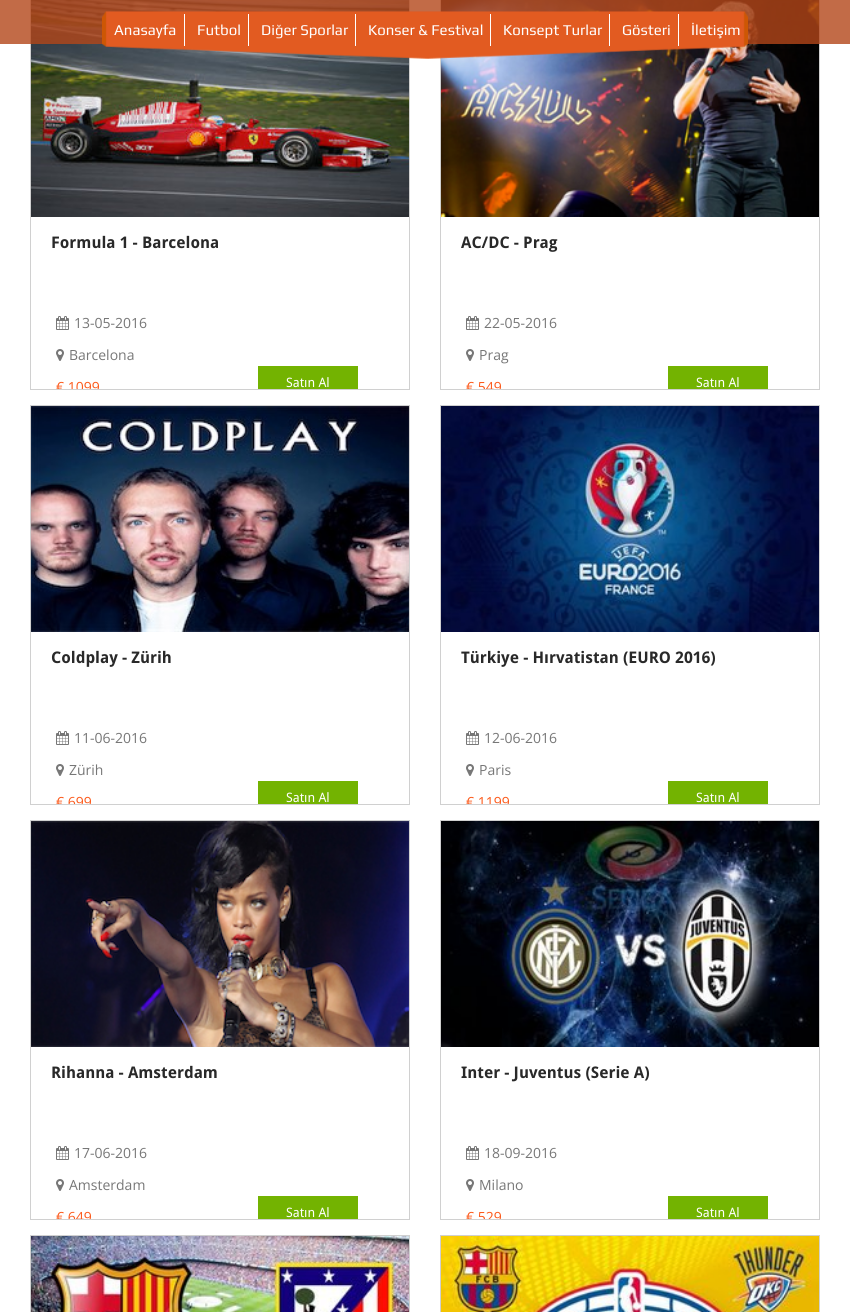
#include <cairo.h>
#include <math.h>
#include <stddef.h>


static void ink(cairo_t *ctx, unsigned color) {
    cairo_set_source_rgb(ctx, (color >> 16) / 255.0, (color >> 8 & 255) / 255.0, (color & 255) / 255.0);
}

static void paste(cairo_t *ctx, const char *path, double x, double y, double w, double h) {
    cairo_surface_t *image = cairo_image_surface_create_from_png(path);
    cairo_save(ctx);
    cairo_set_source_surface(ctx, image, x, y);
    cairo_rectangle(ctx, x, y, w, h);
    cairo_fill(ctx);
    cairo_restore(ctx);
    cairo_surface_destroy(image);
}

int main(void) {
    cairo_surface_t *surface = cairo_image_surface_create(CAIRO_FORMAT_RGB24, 850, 1312);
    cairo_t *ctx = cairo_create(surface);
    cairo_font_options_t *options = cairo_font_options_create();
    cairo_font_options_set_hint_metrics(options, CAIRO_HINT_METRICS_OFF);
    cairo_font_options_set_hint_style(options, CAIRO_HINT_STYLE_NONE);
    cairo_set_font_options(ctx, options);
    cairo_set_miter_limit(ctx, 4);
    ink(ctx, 0xFFFFFF);
    cairo_paint(ctx);
    cairo_rectangle(ctx, 30.5, -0.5, 379, 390);
    ink(ctx, 0xD0D0D0);
    cairo_set_line_width(ctx, 1);
    cairo_stroke(ctx);
    paste(ctx, "media/2.png", 31, 0, 378, 217);
    cairo_rectangle(ctx, 440.5, -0.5, 379, 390);
    cairo_stroke(ctx);
    paste(ctx, "media/5.png", 441, 0, 378, 217);
    cairo_set_source_rgba(ctx, 0.702, 0.278, 0.102, 0.8);
    cairo_rectangle(ctx, 0, 0, 850, 44);
    cairo_fill(ctx);
    paste(ctx, "media/1.png", 102, 11, 646, 48);
    ink(ctx, 0xFFFFFF);
    cairo_rectangle(ctx, 184, 14, 1, 32);
    cairo_fill(ctx);
    cairo_select_font_face(ctx, "Play", CAIRO_FONT_SLANT_NORMAL, CAIRO_FONT_WEIGHT_NORMAL);
    cairo_set_font_size(ctx, 15);
    cairo_move_to(ctx, 114, 35);
    cairo_show_text(ctx, "Anasayfa");
    cairo_rectangle(ctx, 248, 14, 1, 32);
    cairo_fill(ctx);
    cairo_move_to(ctx, 197, 35);
    cairo_show_text(ctx, "Futbol");
    cairo_rectangle(ctx, 355, 14, 1, 32);
    cairo_fill(ctx);
    cairo_move_to(ctx, 261, 35);
    cairo_show_text(ctx, "Diğer Sporlar");
    cairo_rectangle(ctx, 490, 14, 1, 32);
    cairo_fill(ctx);
    cairo_move_to(ctx, 368, 35);
    cairo_show_text(ctx, "Konser & Festival");
    cairo_rectangle(ctx, 609, 14, 1, 32);
    cairo_fill(ctx);
    cairo_move_to(ctx, 503, 35);
    cairo_show_text(ctx, "Konsept Turlar");
    cairo_rectangle(ctx, 678, 14, 1, 32);
    cairo_fill(ctx);
    cairo_move_to(ctx, 622, 35);
    cairo_show_text(ctx, "Gösteri");
    cairo_move_to(ctx, 691, 35);
    cairo_show_text(ctx, "İletişim");
    cairo_select_font_face(ctx, "Droid Sans", CAIRO_FONT_SLANT_NORMAL, CAIRO_FONT_WEIGHT_BOLD);
    cairo_set_font_size(ctx, 16);
    ink(ctx, 0x292929);
    cairo_move_to(ctx, 51, 248);
    cairo_show_text(ctx, "Formula 1 - Barcelona");
    paste(ctx, "media/3.png", 56, 316, 13, 14);
    cairo_select_font_face(ctx, "Open Sans", CAIRO_FONT_SLANT_NORMAL, CAIRO_FONT_WEIGHT_NORMAL);
    cairo_set_font_size(ctx, 14);
    ink(ctx, 0x777777);
    cairo_move_to(ctx, 74, 328);
    cairo_show_text(ctx, "13-05-2016");
    paste(ctx, "media/4.png", 56, 349, 8, 12);
    cairo_move_to(ctx, 69, 360);
    cairo_show_text(ctx, "Barcelona");
    cairo_save(ctx);
    cairo_rectangle(ctx, 31, 0, 378, 389);
    cairo_clip(ctx);
    ink(ctx, 0xFC5A1B);
    cairo_move_to(ctx, 56, 392);
    cairo_show_text(ctx, "€ 1099");
    cairo_restore(ctx);
    ink(ctx, 0x73B301);
    cairo_rectangle(ctx, 258, 366, 100, 23);
    cairo_fill(ctx);
    cairo_select_font_face(ctx, "Droid Sans", CAIRO_FONT_SLANT_NORMAL, CAIRO_FONT_WEIGHT_NORMAL);
    cairo_set_font_size(ctx, 13);
    ink(ctx, 0xFFFFFF);
    cairo_move_to(ctx, 286, 387);
    cairo_show_text(ctx, "Satın Al");
    cairo_select_font_face(ctx, "Droid Sans", CAIRO_FONT_SLANT_NORMAL, CAIRO_FONT_WEIGHT_BOLD);
    cairo_set_font_size(ctx, 16);
    ink(ctx, 0x292929);
    cairo_move_to(ctx, 461, 248);
    cairo_show_text(ctx, "AC/DC - Prag");
    paste(ctx, "media/3.png", 466, 316, 13, 14);
    cairo_select_font_face(ctx, "Open Sans", CAIRO_FONT_SLANT_NORMAL, CAIRO_FONT_WEIGHT_NORMAL);
    cairo_set_font_size(ctx, 14);
    ink(ctx, 0x777777);
    cairo_move_to(ctx, 484, 328);
    cairo_show_text(ctx, "22-05-2016");
    paste(ctx, "media/4.png", 466, 349, 8, 12);
    cairo_move_to(ctx, 479, 360);
    cairo_show_text(ctx, "Prag");
    cairo_save(ctx);
    cairo_rectangle(ctx, 441, 0, 378, 389);
    cairo_clip(ctx);
    ink(ctx, 0xFC5A1B);
    cairo_move_to(ctx, 466, 392);
    cairo_show_text(ctx, "€ 549");
    cairo_restore(ctx);
    ink(ctx, 0x73B301);
    cairo_rectangle(ctx, 668, 366, 100, 23);
    cairo_fill(ctx);
    cairo_select_font_face(ctx, "Droid Sans", CAIRO_FONT_SLANT_NORMAL, CAIRO_FONT_WEIGHT_NORMAL);
    cairo_set_font_size(ctx, 13);
    ink(ctx, 0xFFFFFF);
    cairo_move_to(ctx, 696, 387);
    cairo_show_text(ctx, "Satın Al");
    cairo_rectangle(ctx, 30.5, 405.5, 379, 399);
    ink(ctx, 0xD0D0D0);
    cairo_stroke(ctx);
    paste(ctx, "media/6.png", 31, 406, 378, 226);
    cairo_select_font_face(ctx, "Droid Sans", CAIRO_FONT_SLANT_NORMAL, CAIRO_FONT_WEIGHT_BOLD);
    cairo_set_font_size(ctx, 16);
    ink(ctx, 0x292929);
    cairo_move_to(ctx, 51, 663);
    cairo_show_text(ctx, "Coldplay - Zürih");
    paste(ctx, "media/3.png", 56, 731, 13, 14);
    cairo_select_font_face(ctx, "Open Sans", CAIRO_FONT_SLANT_NORMAL, CAIRO_FONT_WEIGHT_NORMAL);
    cairo_set_font_size(ctx, 14);
    ink(ctx, 0x777777);
    cairo_move_to(ctx, 74, 743);
    cairo_show_text(ctx, "11-06-2016");
    paste(ctx, "media/4.png", 56, 764, 8, 12);
    cairo_move_to(ctx, 69, 775);
    cairo_show_text(ctx, "Zürih");
    cairo_save(ctx);
    cairo_rectangle(ctx, 31, 406, 378, 398);
    cairo_clip(ctx);
    ink(ctx, 0xFC5A1B);
    cairo_move_to(ctx, 56, 807);
    cairo_show_text(ctx, "€ 699");
    cairo_restore(ctx);
    ink(ctx, 0x73B301);
    cairo_rectangle(ctx, 258, 781, 100, 23);
    cairo_fill(ctx);
    cairo_select_font_face(ctx, "Droid Sans", CAIRO_FONT_SLANT_NORMAL, CAIRO_FONT_WEIGHT_NORMAL);
    cairo_set_font_size(ctx, 13);
    ink(ctx, 0xFFFFFF);
    cairo_move_to(ctx, 286, 802);
    cairo_show_text(ctx, "Satın Al");
    cairo_rectangle(ctx, 440.5, 405.5, 379, 399);
    ink(ctx, 0xD0D0D0);
    cairo_stroke(ctx);
    paste(ctx, "media/7.png", 441, 406, 378, 226);
    cairo_select_font_face(ctx, "Droid Sans", CAIRO_FONT_SLANT_NORMAL, CAIRO_FONT_WEIGHT_BOLD);
    cairo_set_font_size(ctx, 16);
    ink(ctx, 0x292929);
    cairo_move_to(ctx, 461, 663);
    cairo_show_text(ctx, "Türkiye - Hırvatistan (EURO 2016)");
    paste(ctx, "media/3.png", 466, 731, 13, 14);
    cairo_select_font_face(ctx, "Open Sans", CAIRO_FONT_SLANT_NORMAL, CAIRO_FONT_WEIGHT_NORMAL);
    cairo_set_font_size(ctx, 14);
    ink(ctx, 0x777777);
    cairo_move_to(ctx, 484, 743);
    cairo_show_text(ctx, "12-06-2016");
    paste(ctx, "media/4.png", 466, 764, 8, 12);
    cairo_move_to(ctx, 479, 775);
    cairo_show_text(ctx, "Paris");
    cairo_save(ctx);
    cairo_rectangle(ctx, 441, 406, 378, 398);
    cairo_clip(ctx);
    ink(ctx, 0xFC5A1B);
    cairo_move_to(ctx, 466, 807);
    cairo_show_text(ctx, "€ 1199");
    cairo_restore(ctx);
    ink(ctx, 0x73B301);
    cairo_rectangle(ctx, 668, 781, 100, 23);
    cairo_fill(ctx);
    cairo_select_font_face(ctx, "Droid Sans", CAIRO_FONT_SLANT_NORMAL, CAIRO_FONT_WEIGHT_NORMAL);
    cairo_set_font_size(ctx, 13);
    ink(ctx, 0xFFFFFF);
    cairo_move_to(ctx, 696, 802);
    cairo_show_text(ctx, "Satın Al");
    cairo_rectangle(ctx, 30.5, 820.5, 379, 399);
    ink(ctx, 0xD0D0D0);
    cairo_stroke(ctx);
    paste(ctx, "media/8.png", 31, 821, 378, 226);
    cairo_select_font_face(ctx, "Droid Sans", CAIRO_FONT_SLANT_NORMAL, CAIRO_FONT_WEIGHT_BOLD);
    cairo_set_font_size(ctx, 16);
    ink(ctx, 0x292929);
    cairo_move_to(ctx, 51, 1078);
    cairo_show_text(ctx, "Rihanna - Amsterdam");
    paste(ctx, "media/3.png", 56, 1146, 13, 14);
    cairo_select_font_face(ctx, "Open Sans", CAIRO_FONT_SLANT_NORMAL, CAIRO_FONT_WEIGHT_NORMAL);
    cairo_set_font_size(ctx, 14);
    ink(ctx, 0x777777);
    cairo_move_to(ctx, 74, 1158);
    cairo_show_text(ctx, "17-06-2016");
    paste(ctx, "media/4.png", 56, 1179, 8, 12);
    cairo_move_to(ctx, 69, 1190);
    cairo_show_text(ctx, "Amsterdam");
    cairo_save(ctx);
    cairo_rectangle(ctx, 31, 821, 378, 398);
    cairo_clip(ctx);
    ink(ctx, 0xFC5A1B);
    cairo_move_to(ctx, 56, 1222);
    cairo_show_text(ctx, "€ 649");
    cairo_restore(ctx);
    ink(ctx, 0x73B301);
    cairo_rectangle(ctx, 258, 1196, 100, 23);
    cairo_fill(ctx);
    cairo_select_font_face(ctx, "Droid Sans", CAIRO_FONT_SLANT_NORMAL, CAIRO_FONT_WEIGHT_NORMAL);
    cairo_set_font_size(ctx, 13);
    ink(ctx, 0xFFFFFF);
    cairo_move_to(ctx, 286, 1217);
    cairo_show_text(ctx, "Satın Al");
    cairo_rectangle(ctx, 440.5, 820.5, 379, 399);
    ink(ctx, 0xD0D0D0);
    cairo_stroke(ctx);
    paste(ctx, "media/9.png", 441, 821, 378, 226);
    cairo_select_font_face(ctx, "Droid Sans", CAIRO_FONT_SLANT_NORMAL, CAIRO_FONT_WEIGHT_BOLD);
    cairo_set_font_size(ctx, 16);
    ink(ctx, 0x292929);
    cairo_move_to(ctx, 461, 1078);
    cairo_show_text(ctx, "Inter - Juventus (Serie A)");
    paste(ctx, "media/3.png", 466, 1146, 13, 14);
    cairo_select_font_face(ctx, "Open Sans", CAIRO_FONT_SLANT_NORMAL, CAIRO_FONT_WEIGHT_NORMAL);
    cairo_set_font_size(ctx, 14);
    ink(ctx, 0x777777);
    cairo_move_to(ctx, 484, 1158);
    cairo_show_text(ctx, "18-09-2016");
    paste(ctx, "media/4.png", 466, 1179, 8, 12);
    cairo_move_to(ctx, 479, 1190);
    cairo_show_text(ctx, "Milano");
    cairo_save(ctx);
    cairo_rectangle(ctx, 441, 821, 378, 398);
    cairo_clip(ctx);
    ink(ctx, 0xFC5A1B);
    cairo_move_to(ctx, 466, 1222);
    cairo_show_text(ctx, "€ 529");
    cairo_restore(ctx);
    ink(ctx, 0x73B301);
    cairo_rectangle(ctx, 668, 1196, 100, 23);
    cairo_fill(ctx);
    cairo_select_font_face(ctx, "Droid Sans", CAIRO_FONT_SLANT_NORMAL, CAIRO_FONT_WEIGHT_NORMAL);
    cairo_set_font_size(ctx, 13);
    ink(ctx, 0xFFFFFF);
    cairo_move_to(ctx, 696, 1217);
    cairo_show_text(ctx, "Satın Al");
    cairo_rectangle(ctx, 30.5, 1235.5, 379, 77);
    ink(ctx, 0xD0D0D0);
    cairo_stroke(ctx);
    paste(ctx, "media/10.png", 31, 1236, 378, 76);
    cairo_rectangle(ctx, 440.5, 1235.5, 379, 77);
    cairo_stroke(ctx);
    paste(ctx, "media/11.png", 441, 1236, 378, 76);
    cairo_surface_write_to_png(surface, "image.png");
    cairo_font_options_destroy(options);
    cairo_destroy(ctx);
    cairo_surface_destroy(surface);
    return 0;
}
